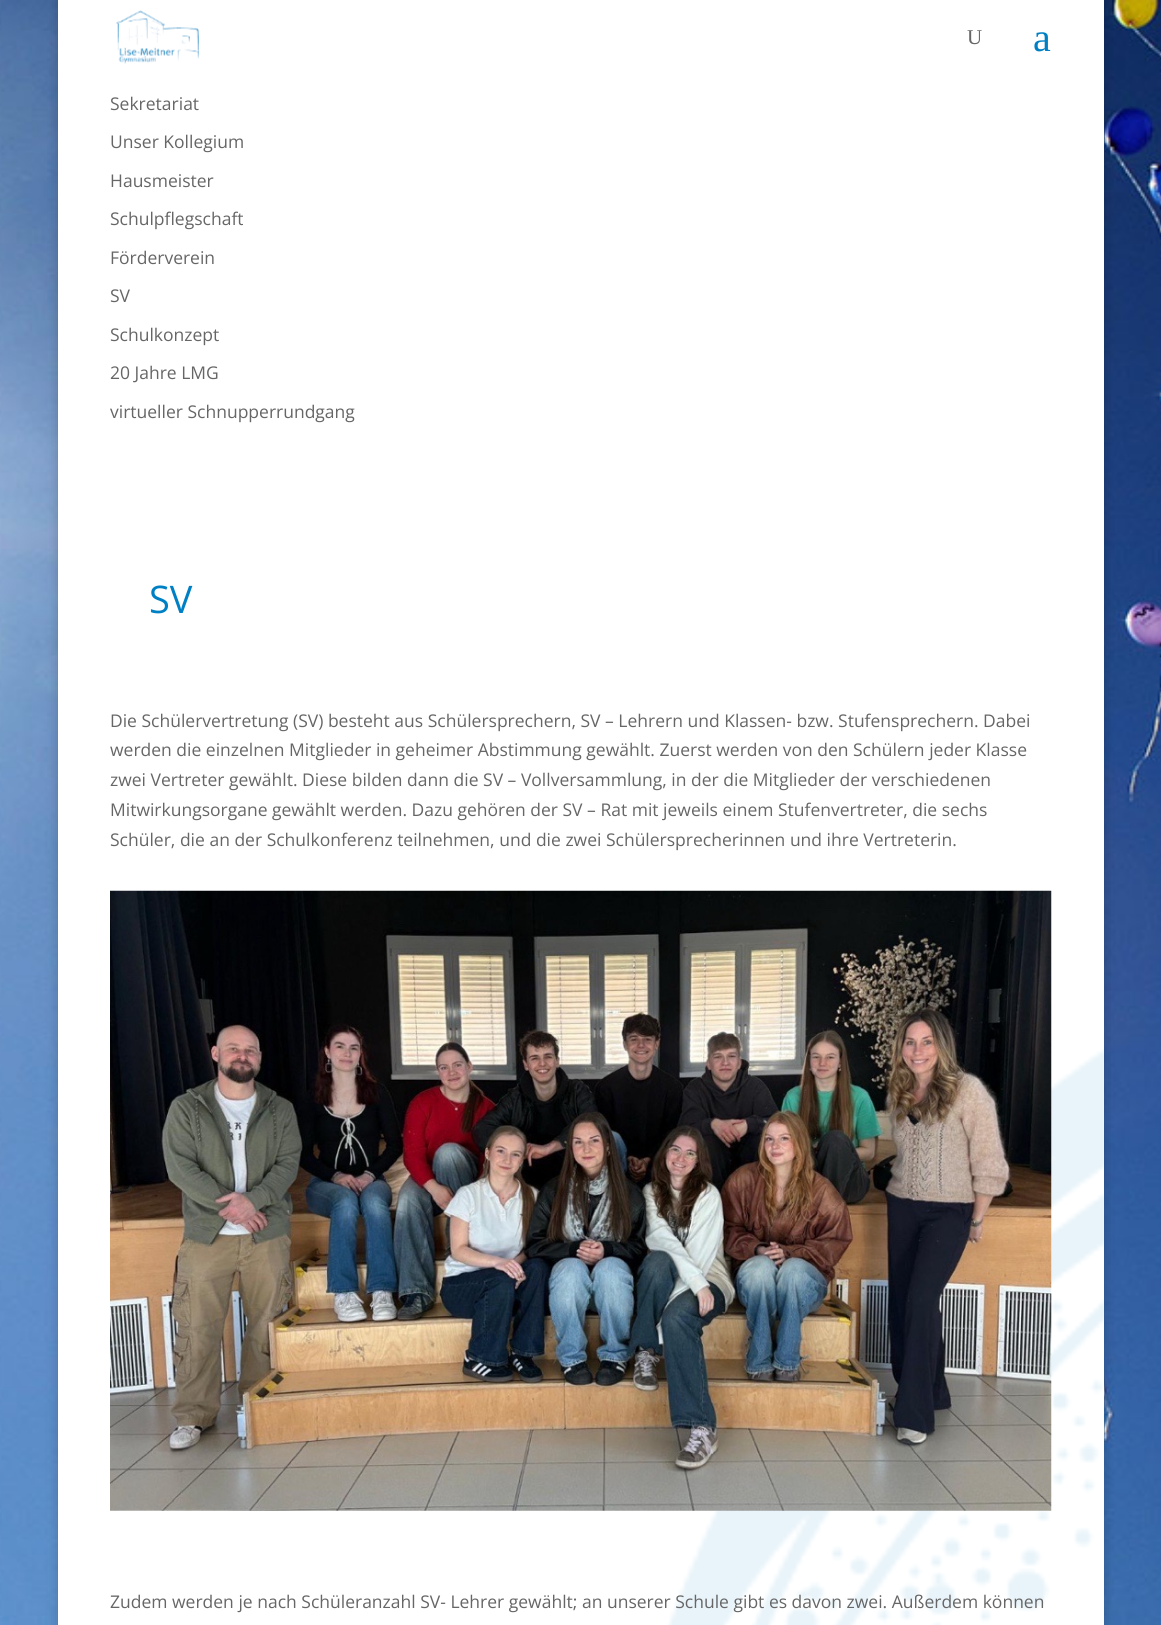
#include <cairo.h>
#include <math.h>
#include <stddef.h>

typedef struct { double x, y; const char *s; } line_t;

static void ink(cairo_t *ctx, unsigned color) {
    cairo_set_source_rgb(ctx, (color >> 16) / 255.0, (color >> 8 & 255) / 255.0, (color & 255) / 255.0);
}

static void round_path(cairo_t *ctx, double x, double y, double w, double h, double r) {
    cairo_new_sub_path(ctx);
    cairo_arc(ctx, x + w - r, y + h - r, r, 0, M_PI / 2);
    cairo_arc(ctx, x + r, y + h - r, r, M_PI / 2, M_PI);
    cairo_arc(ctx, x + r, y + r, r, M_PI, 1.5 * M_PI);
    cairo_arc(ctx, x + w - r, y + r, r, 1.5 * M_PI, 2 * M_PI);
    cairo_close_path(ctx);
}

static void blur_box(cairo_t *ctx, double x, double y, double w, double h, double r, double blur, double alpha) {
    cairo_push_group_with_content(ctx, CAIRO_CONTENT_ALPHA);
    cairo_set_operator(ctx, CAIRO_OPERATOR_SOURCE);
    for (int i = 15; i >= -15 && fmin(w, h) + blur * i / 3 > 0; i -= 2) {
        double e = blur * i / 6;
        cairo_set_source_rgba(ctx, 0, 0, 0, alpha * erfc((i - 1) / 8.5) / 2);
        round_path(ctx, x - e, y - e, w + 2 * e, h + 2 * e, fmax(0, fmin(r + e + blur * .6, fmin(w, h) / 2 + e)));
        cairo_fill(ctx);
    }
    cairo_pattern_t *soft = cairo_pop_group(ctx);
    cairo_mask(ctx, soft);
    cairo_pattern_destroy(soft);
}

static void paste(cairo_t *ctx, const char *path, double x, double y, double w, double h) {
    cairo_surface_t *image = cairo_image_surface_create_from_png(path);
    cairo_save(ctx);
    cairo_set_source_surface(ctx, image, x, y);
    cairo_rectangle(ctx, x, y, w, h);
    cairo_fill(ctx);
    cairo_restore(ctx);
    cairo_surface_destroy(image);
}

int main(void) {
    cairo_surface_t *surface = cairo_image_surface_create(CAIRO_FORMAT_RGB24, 1161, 1625);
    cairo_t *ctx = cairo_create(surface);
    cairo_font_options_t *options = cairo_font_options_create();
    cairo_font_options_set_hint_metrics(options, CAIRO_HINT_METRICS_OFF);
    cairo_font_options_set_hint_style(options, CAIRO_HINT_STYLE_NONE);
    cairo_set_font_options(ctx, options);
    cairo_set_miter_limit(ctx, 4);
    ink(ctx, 0xFFFFFF);
    cairo_paint(ctx);
    paste(ctx, "media/1.png", 0, 0, 1161, 1625);
    ink(ctx, 0x000000);
    blur_box(ctx, 58, -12, 1046, 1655, 0, 6, 0.2);
    ink(ctx, 0xFFFFFF);
    cairo_rectangle(ctx, 58, 0, 1046, 1625);
    cairo_fill(ctx);
    paste(ctx, "media/2.png", 116, 10, 83, 54);
    cairo_select_font_face(ctx, "Liberation Serif", CAIRO_FONT_SLANT_NORMAL, CAIRO_FONT_WEIGHT_NORMAL);
    cairo_set_font_size(ctx, 21);
    ink(ctx, 0x666666);
    cairo_move_to(ctx, 967, 44);
    cairo_show_text(ctx, "U");
    cairo_set_font_size(ctx, 40);
    ink(ctx, 0x0080C4);
    cairo_move_to(ctx, 1033, 51);
    cairo_show_text(ctx, "a");
    paste(ctx, "media/3.png", 667, 1049, 437, 576);
    cairo_select_font_face(ctx, "Open Sans", CAIRO_FONT_SLANT_NORMAL, CAIRO_FONT_WEIGHT_NORMAL);
    cairo_set_font_size(ctx, 17.5);
    ink(ctx, 0x666666);
    {
        static const line_t items[] = {
            {110, 110, "Sekretariat"},
            {110, 148, "Unser Kollegium"},
            {110, 187, "Hausmeister"},
            {110, 225, "Schulpflegschaft"},
            {110, 264, "Förderverein"},
            {110, 302, "SV"},
            {110, 341, "Schulkonzept"},
            {110, 379, "20 Jahre LMG"},
            {110, 418, "virtueller Schnupperrundgang"},
        };
        for (size_t i = 0; i < sizeof items / sizeof *items; i++) {
            cairo_move_to(ctx, items[i].x, items[i].y);
            cairo_show_text(ctx, items[i].s);
        }
    }
    cairo_set_font_size(ctx, 38);
    ink(ctx, 0x0080C4);
    cairo_move_to(ctx, 149, 613);
    cairo_show_text(ctx, "SV");
    cairo_set_font_size(ctx, 17.5);
    ink(ctx, 0x666666);
    {
        static const line_t items[] = {
            {110, 727, "Die Schülervertretung (SV) besteht aus Schülersprechern, SV – Lehrern und Klassen- bzw. Stufensprechern. Dabei"},
            {110, 756, "werden die einzelnen Mitglieder in geheimer Abstimmung gewählt. Zuerst werden von den Schülern jeder Klasse"},
            {110, 786, "zwei Vertreter gewählt. Diese bilden dann die SV – Vollversammlung, in der die Mitglieder der verschiedenen"},
            {110, 816, "Mitwirkungsorgane gewählt werden. Dazu gehören der SV – Rat mit jeweils einem Stufenvertreter, die sechs"},
            {110, 846, "Schüler, die an der Schulkonferenz teilnehmen, und die zwei Schülersprecherinnen und ihre Vertreterin."},
        };
        for (size_t i = 0; i < sizeof items / sizeof *items; i++) {
            cairo_move_to(ctx, items[i].x, items[i].y);
            cairo_show_text(ctx, items[i].s);
        }
    }
    paste(ctx, "media/4.png", 110, 890, 942, 621);
    cairo_move_to(ctx, 110, 1608);
    cairo_show_text(ctx, "Zudem werden je nach Schüleranzahl SV- Lehrer gewählt; an unserer Schule gibt es davon zwei. Außerdem können");
    cairo_surface_write_to_png(surface, "image.png");
    cairo_font_options_destroy(options);
    cairo_destroy(ctx);
    cairo_surface_destroy(surface);
    return 0;
}
